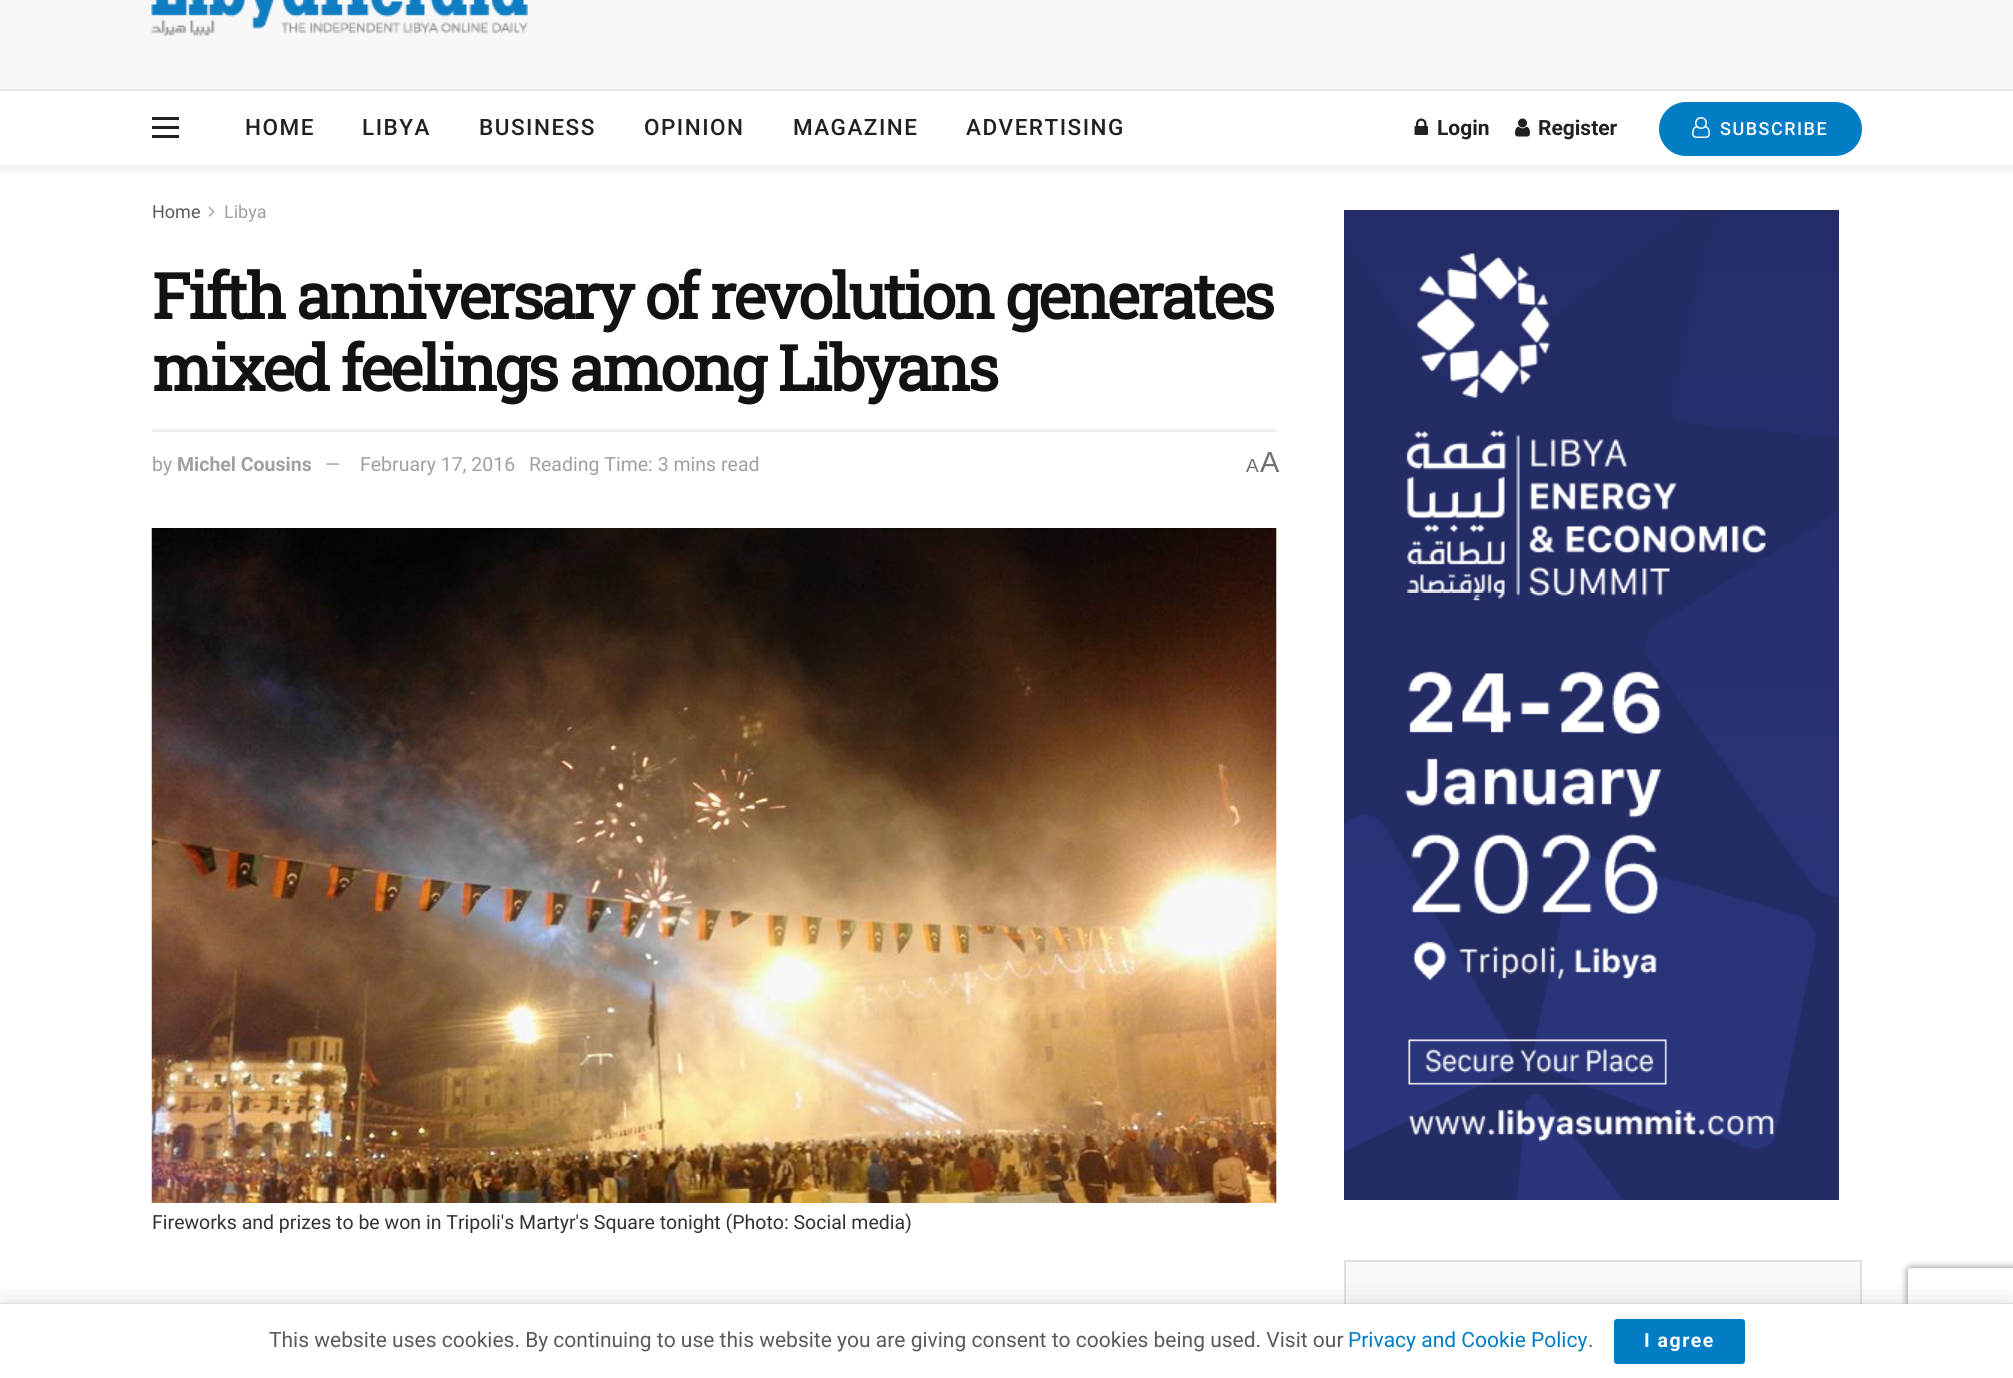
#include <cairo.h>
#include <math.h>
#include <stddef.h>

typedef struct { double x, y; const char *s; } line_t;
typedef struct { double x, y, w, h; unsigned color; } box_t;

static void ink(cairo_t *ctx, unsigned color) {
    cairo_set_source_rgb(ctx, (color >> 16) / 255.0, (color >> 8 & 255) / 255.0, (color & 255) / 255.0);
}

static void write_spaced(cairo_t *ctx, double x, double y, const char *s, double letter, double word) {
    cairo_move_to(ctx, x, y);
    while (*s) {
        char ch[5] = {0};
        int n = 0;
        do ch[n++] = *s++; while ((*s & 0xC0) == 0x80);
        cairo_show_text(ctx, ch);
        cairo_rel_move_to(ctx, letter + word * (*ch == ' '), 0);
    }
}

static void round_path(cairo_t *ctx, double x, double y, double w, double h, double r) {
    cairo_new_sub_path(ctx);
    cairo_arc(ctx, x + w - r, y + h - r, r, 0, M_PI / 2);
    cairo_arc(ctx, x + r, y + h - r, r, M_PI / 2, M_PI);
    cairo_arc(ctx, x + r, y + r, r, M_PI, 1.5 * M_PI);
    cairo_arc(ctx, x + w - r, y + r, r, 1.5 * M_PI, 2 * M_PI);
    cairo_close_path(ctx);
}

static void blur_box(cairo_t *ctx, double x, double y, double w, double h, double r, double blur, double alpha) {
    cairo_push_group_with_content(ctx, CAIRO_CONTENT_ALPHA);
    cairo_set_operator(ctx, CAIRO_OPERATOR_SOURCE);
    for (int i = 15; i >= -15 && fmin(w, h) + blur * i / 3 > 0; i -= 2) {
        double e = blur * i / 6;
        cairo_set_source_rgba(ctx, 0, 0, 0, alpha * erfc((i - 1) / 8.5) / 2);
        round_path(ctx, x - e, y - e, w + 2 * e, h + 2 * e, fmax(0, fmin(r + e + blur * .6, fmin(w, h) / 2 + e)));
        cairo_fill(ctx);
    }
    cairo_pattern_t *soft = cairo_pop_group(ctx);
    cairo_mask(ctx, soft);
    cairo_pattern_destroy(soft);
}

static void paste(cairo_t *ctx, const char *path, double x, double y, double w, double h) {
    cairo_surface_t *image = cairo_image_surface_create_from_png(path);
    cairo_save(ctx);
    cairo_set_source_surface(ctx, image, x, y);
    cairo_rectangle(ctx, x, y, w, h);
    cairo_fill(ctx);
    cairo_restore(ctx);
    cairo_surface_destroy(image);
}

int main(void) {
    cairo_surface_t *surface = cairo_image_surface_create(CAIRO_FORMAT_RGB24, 2013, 1378);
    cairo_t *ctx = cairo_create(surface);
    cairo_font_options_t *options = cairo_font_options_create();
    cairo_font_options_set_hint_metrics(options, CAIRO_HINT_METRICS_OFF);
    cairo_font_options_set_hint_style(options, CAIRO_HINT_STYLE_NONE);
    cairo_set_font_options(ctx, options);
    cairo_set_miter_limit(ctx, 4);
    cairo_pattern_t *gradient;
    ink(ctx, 0xFFFFFF);
    cairo_paint(ctx);
    ink(ctx, 0xF7F7F7);
    cairo_rectangle(ctx, 0, 0, 2013, 89);
    cairo_fill(ctx);
    paste(ctx, "media/1.png", 151, 0, 377, 36);
    {
        static const box_t items[] = {
            {0, 89, 2013, 2, 0xE8E8E8},
            {152, 117, 27, 3, 0x212121},
            {152, 126, 27, 3, 0x212121},
            {152, 135, 27, 3, 0x212121},
        };
        for (size_t i = 0; i < sizeof items / sizeof *items; i++) {
            ink(ctx, items[i].color);
            cairo_rectangle(ctx, items[i].x, items[i].y, items[i].w, items[i].h);
            cairo_fill(ctx);
        }
    }
    cairo_select_font_face(ctx, "Roboto Medium", CAIRO_FONT_SLANT_NORMAL, CAIRO_FONT_WEIGHT_NORMAL);
    cairo_set_font_size(ctx, 22.5);
    {
        static const line_t items[] = {
            {245, 135, "HOME"},
            {362, 135, "LIBYA"},
            {479, 135, "BUSINESS"},
            {644, 135, "OPINION"},
            {793, 135, "MAGAZINE"},
            {966, 135, "ADVERTISING"},
        };
        for (size_t i = 0; i < sizeof items / sizeof *items; i++) {
            write_spaced(ctx, items[i].x, items[i].y, items[i].s, 1.5, 0);
        }
    }
    paste(ctx, "media/2.png", 1414, 118, 14, 17);
    cairo_select_font_face(ctx, "Roboto", CAIRO_FONT_SLANT_NORMAL, CAIRO_FONT_WEIGHT_BOLD);
    cairo_set_font_size(ctx, 21);
    cairo_move_to(ctx, 1437, 135);
    cairo_show_text(ctx, "Login");
    paste(ctx, "media/3.png", 1515, 118, 15, 19);
    cairo_move_to(ctx, 1538, 135);
    cairo_show_text(ctx, "Register");
    ink(ctx, 0x007DC5);
    round_path(ctx, 1659, 102, 203, 54, 27);
    cairo_fill(ctx);
    paste(ctx, "media/4.png", 1692, 117, 18, 21);
    cairo_select_font_face(ctx, "Roboto Medium", CAIRO_FONT_SLANT_NORMAL, CAIRO_FONT_WEIGHT_NORMAL);
    cairo_set_font_size(ctx, 18);
    ink(ctx, 0xFFFFFF);
    write_spaced(ctx, 1720, 135, "SUBSCRIBE", 1.5, 0);
    gradient = cairo_pattern_create_linear(1007, 165, 1007, 177);
    cairo_pattern_add_color_stop_rgba(gradient, 0, 0.949, 0.949, 0.949, 1);
    cairo_pattern_add_color_stop_rgba(gradient, 1, 1, 1, 1, 1);
    cairo_set_source(ctx, gradient);
    cairo_pattern_destroy(gradient);
    cairo_rectangle(ctx, 0, 165, 2013, 10);
    cairo_fill(ctx);
    cairo_select_font_face(ctx, "Roboto", CAIRO_FONT_SLANT_NORMAL, CAIRO_FONT_WEIGHT_NORMAL);
    ink(ctx, 0x5A5A5A);
    cairo_move_to(ctx, 152, 218);
    cairo_show_text(ctx, "Home");
    paste(ctx, "media/5.png", 208, 206, 7, 11);
    ink(ctx, 0xA0A0A0);
    cairo_move_to(ctx, 224, 218);
    cairo_show_text(ctx, "Libya");
    cairo_select_font_face(ctx, "Roboto Slab", CAIRO_FONT_SLANT_NORMAL, CAIRO_FONT_WEIGHT_BOLD);
    cairo_set_font_size(ctx, 63);
    ink(ctx, 0x121212);
    write_spaced(ctx, 152, 319, "Fifth anniversary of revolution generates", -2.5, 0);
    write_spaced(ctx, 152, 391, "mixed feelings among Libyans", -2.5, 0);
    ink(ctx, 0xEEEEEE);
    cairo_rectangle(ctx, 152, 429, 1125, 3);
    cairo_fill(ctx);
    cairo_select_font_face(ctx, "Roboto", CAIRO_FONT_SLANT_NORMAL, CAIRO_FONT_WEIGHT_NORMAL);
    cairo_set_font_size(ctx, 19.5);
    ink(ctx, 0xA0A0A0);
    cairo_move_to(ctx, 152, 471);
    cairo_show_text(ctx, "by");
    cairo_select_font_face(ctx, "Roboto", CAIRO_FONT_SLANT_NORMAL, CAIRO_FONT_WEIGHT_BOLD);
    cairo_move_to(ctx, 177, 471);
    cairo_show_text(ctx, "Michel Cousins");
    cairo_select_font_face(ctx, "Roboto", CAIRO_FONT_SLANT_NORMAL, CAIRO_FONT_WEIGHT_NORMAL);
    {
        static const line_t items[] = {
            {325, 471, "—"},
            {360, 471, "February 17, 2016"},
            {529, 471, "Reading Time: 3 mins read"},
        };
        for (size_t i = 0; i < sizeof items / sizeof *items; i++) {
            cairo_move_to(ctx, items[i].x, items[i].y);
            cairo_show_text(ctx, items[i].s);
        }
    }
    cairo_select_font_face(ctx, "Liberation Sans", CAIRO_FONT_SLANT_NORMAL, CAIRO_FONT_WEIGHT_NORMAL);
    cairo_set_font_size(ctx, 19);
    ink(ctx, 0x707070);
    cairo_move_to(ctx, 1246, 472);
    cairo_show_text(ctx, "A");
    cairo_set_font_size(ctx, 29);
    cairo_move_to(ctx, 1260, 472);
    cairo_show_text(ctx, "A");
    ink(ctx, 0xF7F7F7);
    cairo_rectangle(ctx, 1276, 528, 1, 675);
    cairo_fill(ctx);
    paste(ctx, "media/6.png", 151, 528, 1126, 675);
    cairo_select_font_face(ctx, "Roboto", CAIRO_FONT_SLANT_NORMAL, CAIRO_FONT_WEIGHT_NORMAL);
    cairo_set_font_size(ctx, 19.5);
    ink(ctx, 0x333333);
    cairo_move_to(ctx, 152, 1229);
    cairo_show_text(ctx, "Fireworks and prizes to be won in Tripoli's Martyr's Square tonight (Photo: Social media)");
    paste(ctx, "media/7.png", 1344, 210, 495, 990);
    ink(ctx, 0xF9F9F9);
    cairo_rectangle(ctx, 1346, 1262, 514, 42);
    cairo_fill(ctx);
    cairo_rectangle(ctx, 1345, 1261, 516, 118);
    ink(ctx, 0xE0E0E0);
    cairo_stroke(ctx);
    ink(ctx, 0x000000);
    blur_box(ctx, 0, 1307, 2013, 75, 0, 15, 0.15);
    blur_box(ctx, 0, 1304, 2013, 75, 0, 1, 0.2);
    cairo_save(ctx);
    cairo_set_fill_rule(ctx, CAIRO_FILL_RULE_EVEN_ODD);
    cairo_new_path(ctx);
    cairo_move_to(ctx, 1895, 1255);
    cairo_line_to(ctx, 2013, 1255);
    cairo_line_to(ctx, 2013, 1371);
    cairo_line_to(ctx, 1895, 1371);
    cairo_close_path(ctx);
    cairo_move_to(ctx, 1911, 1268);
    cairo_line_to(ctx, 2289, 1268);
    cairo_curve_to(ctx, 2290.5, 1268, 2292, 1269.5, 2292, 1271);
    cairo_line_to(ctx, 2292, 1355);
    cairo_curve_to(ctx, 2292, 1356.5, 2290.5, 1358, 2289, 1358);
    cairo_line_to(ctx, 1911, 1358);
    cairo_curve_to(ctx, 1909.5, 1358, 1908, 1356.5, 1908, 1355);
    cairo_line_to(ctx, 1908, 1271);
    cairo_curve_to(ctx, 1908, 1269.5, 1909.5, 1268, 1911, 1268);
    cairo_close_path(ctx);
    cairo_clip(ctx);
    ink(ctx, 0x808080);
    blur_box(ctx, 1908, 1268, 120, 90, 3, 4, 1);
    cairo_restore(ctx);
    ink(ctx, 0xFFFFFF);
    cairo_rectangle(ctx, 0, 1304, 2013, 74);
    cairo_fill(ctx);
    cairo_set_font_size(ctx, 21);
    ink(ctx, 0x5A5A5A);
    cairo_move_to(ctx, 269, 1347);
    cairo_show_text(ctx, "This website uses cookies. By continuing to use this website you are giving consent to cookies being used. Visit our");
    ink(ctx, 0x007DC5);
    cairo_move_to(ctx, 1348, 1347);
    cairo_show_text(ctx, "Privacy and Cookie Policy");
    ink(ctx, 0x5A5A5A);
    cairo_move_to(ctx, 1588, 1347);
    cairo_show_text(ctx, ".");
    ink(ctx, 0x007DC5);
    round_path(ctx, 1614, 1319, 131, 45, 3);
    cairo_fill(ctx);
    cairo_select_font_face(ctx, "Roboto", CAIRO_FONT_SLANT_NORMAL, CAIRO_FONT_WEIGHT_BOLD);
    cairo_set_font_size(ctx, 19.5);
    ink(ctx, 0xFFFFFF);
    write_spaced(ctx, 1644, 1347, "I agree", 1.5, 0);
    cairo_surface_write_to_png(surface, "image.png");
    cairo_font_options_destroy(options);
    cairo_destroy(ctx);
    cairo_surface_destroy(surface);
    return 0;
}
